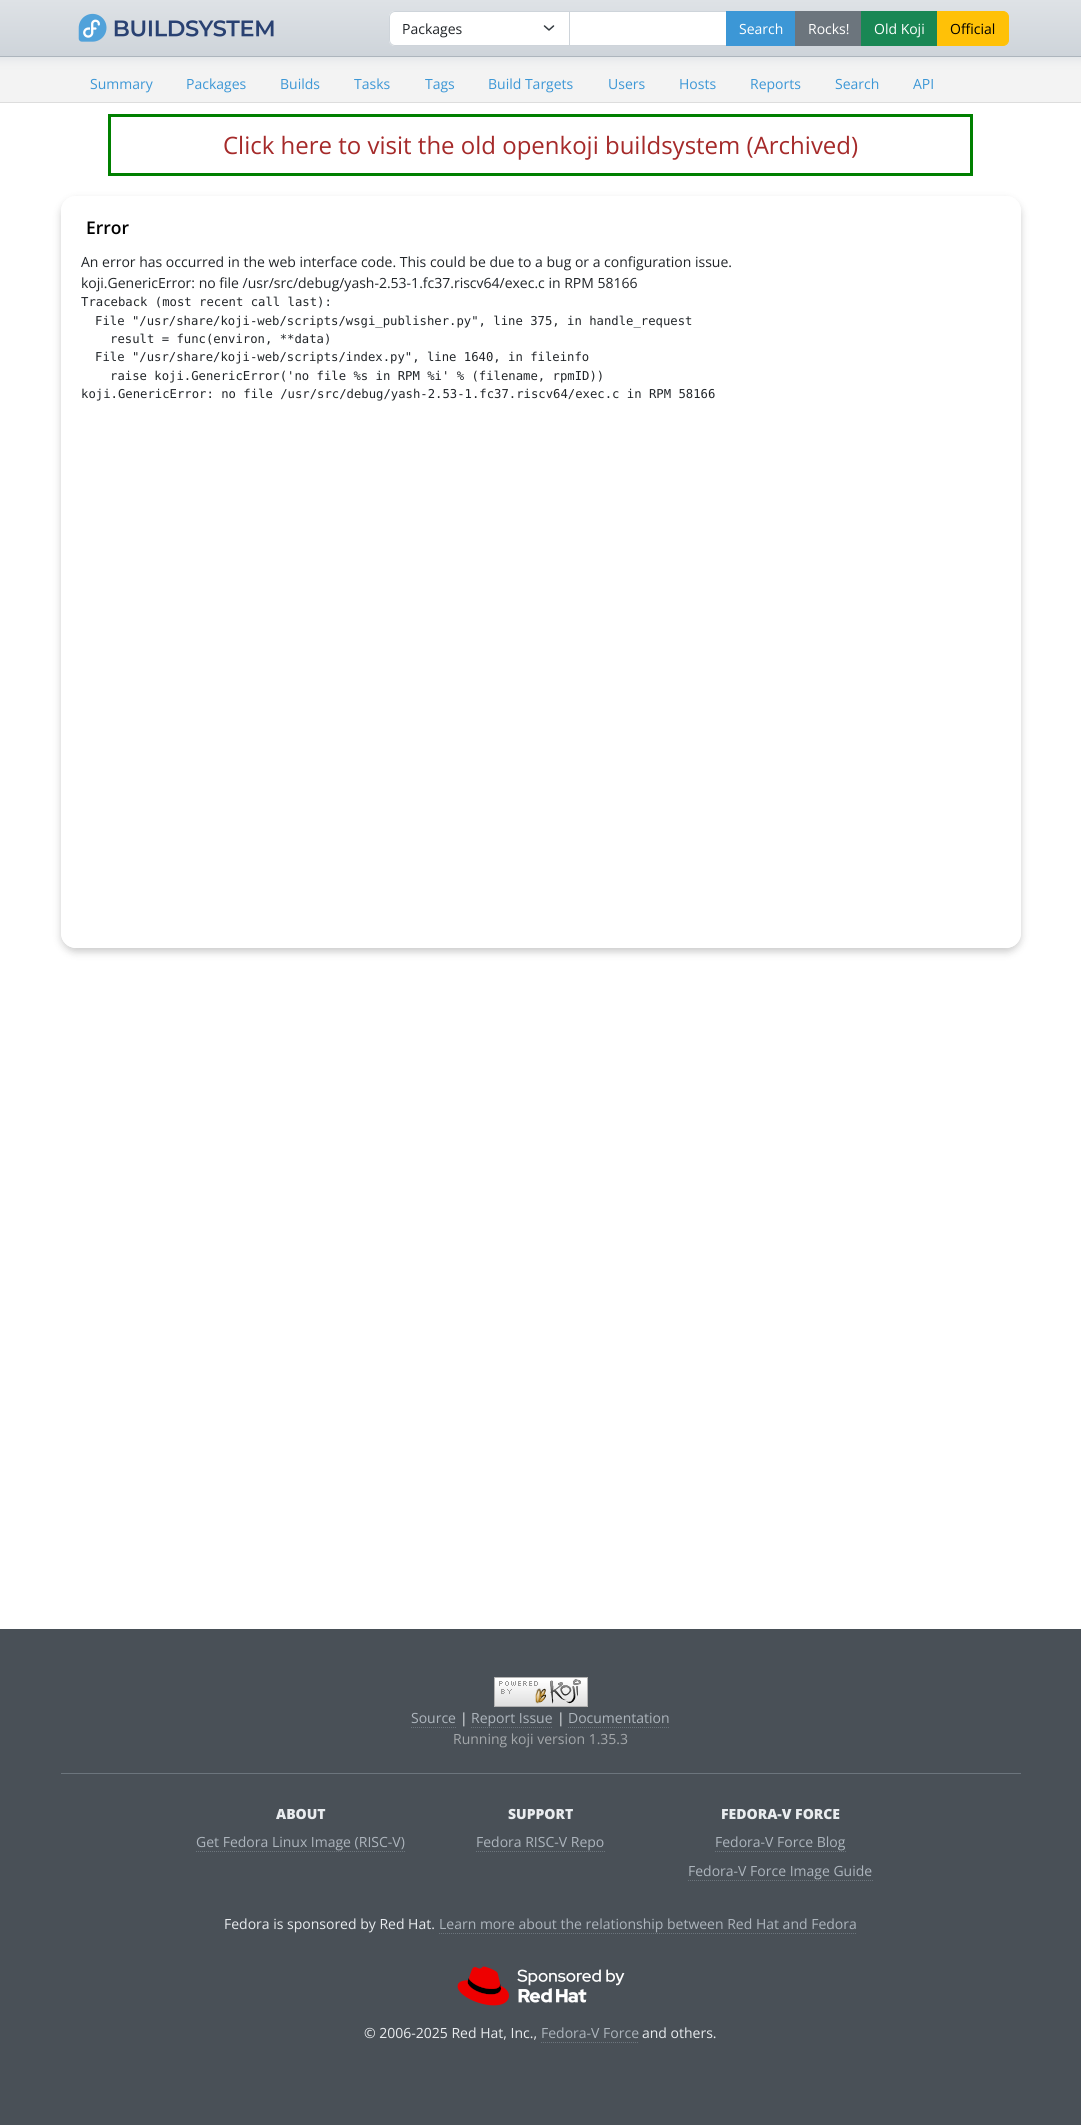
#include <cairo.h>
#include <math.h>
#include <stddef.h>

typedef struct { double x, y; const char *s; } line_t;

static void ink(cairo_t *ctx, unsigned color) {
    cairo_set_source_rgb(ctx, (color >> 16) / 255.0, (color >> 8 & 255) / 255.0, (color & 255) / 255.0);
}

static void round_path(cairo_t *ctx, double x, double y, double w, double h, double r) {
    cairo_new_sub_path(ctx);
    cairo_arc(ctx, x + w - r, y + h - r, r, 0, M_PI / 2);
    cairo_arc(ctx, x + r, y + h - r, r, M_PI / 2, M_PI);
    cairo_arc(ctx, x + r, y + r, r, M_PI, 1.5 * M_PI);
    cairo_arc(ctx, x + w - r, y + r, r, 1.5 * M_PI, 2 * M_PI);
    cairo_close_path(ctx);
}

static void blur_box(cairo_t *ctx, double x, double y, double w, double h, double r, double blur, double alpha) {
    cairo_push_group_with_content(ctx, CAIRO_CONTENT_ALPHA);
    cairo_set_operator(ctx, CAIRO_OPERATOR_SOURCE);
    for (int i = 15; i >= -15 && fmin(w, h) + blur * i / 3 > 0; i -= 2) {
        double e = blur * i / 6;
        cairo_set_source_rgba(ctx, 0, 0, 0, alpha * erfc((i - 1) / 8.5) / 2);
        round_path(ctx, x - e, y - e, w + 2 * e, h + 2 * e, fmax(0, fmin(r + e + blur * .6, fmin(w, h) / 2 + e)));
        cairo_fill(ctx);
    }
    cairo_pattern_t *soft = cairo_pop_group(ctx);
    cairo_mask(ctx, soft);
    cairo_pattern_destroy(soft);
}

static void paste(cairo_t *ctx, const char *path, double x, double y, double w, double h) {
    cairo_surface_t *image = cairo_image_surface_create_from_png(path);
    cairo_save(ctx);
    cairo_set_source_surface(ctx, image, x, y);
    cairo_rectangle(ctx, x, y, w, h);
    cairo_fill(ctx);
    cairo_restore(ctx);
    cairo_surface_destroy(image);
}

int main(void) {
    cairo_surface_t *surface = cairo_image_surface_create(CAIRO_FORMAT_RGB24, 1081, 2125);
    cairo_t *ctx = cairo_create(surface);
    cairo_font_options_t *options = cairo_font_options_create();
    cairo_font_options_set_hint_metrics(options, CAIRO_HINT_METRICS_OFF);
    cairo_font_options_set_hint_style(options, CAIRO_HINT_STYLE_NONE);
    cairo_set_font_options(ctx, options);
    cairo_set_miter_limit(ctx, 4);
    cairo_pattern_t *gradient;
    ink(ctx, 0xFFFFFF);
    cairo_paint(ctx);
    ink(ctx, 0xF3F3F3);
    cairo_rectangle(ctx, 0, 57, 1081, 45);
    cairo_fill(ctx);
    ink(ctx, 0xDEE2E6);
    blur_box(ctx, -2, -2, 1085, 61, 0, 5, 1);
    gradient = cairo_pattern_create_linear(541, 0, 541, 56);
    cairo_pattern_add_color_stop_rgba(gradient, 0, 0.871, 0.886, 0.902, 1);
    cairo_pattern_add_color_stop_rgba(gradient, 1, 0.808, 0.831, 0.855, 1);
    cairo_set_source(ctx, gradient);
    cairo_pattern_destroy(gradient);
    cairo_rectangle(ctx, 0, 0, 1081, 56);
    cairo_fill(ctx);
    ink(ctx, 0xADB5BD);
    cairo_rectangle(ctx, 0, 56, 1081, 1);
    cairo_fill(ctx);
    paste(ctx, "media/1.png", 78, 13, 196, 29);
    ink(ctx, 0xFFFFFF);
    cairo_new_path(ctx);
    cairo_move_to(ctx, 395, 11);
    cairo_line_to(ctx, 570, 11);
    cairo_line_to(ctx, 570, 46);
    cairo_line_to(ctx, 395, 46);
    cairo_curve_to(ctx, 391.5, 46, 389, 43.5, 389, 40);
    cairo_line_to(ctx, 389, 17);
    cairo_curve_to(ctx, 389, 13.5, 391.5, 11, 395, 11);
    cairo_close_path(ctx);
    cairo_fill(ctx);
    cairo_new_path(ctx);
    cairo_move_to(ctx, 544.5, 26);
    cairo_line_to(ctx, 549, 30);
    cairo_line_to(ctx, 553.5, 26);
    ink(ctx, 0x343A40);
    cairo_set_line_width(ctx, 1.5);
    cairo_set_line_cap(ctx, CAIRO_LINE_CAP_ROUND);
    cairo_set_line_join(ctx, CAIRO_LINE_JOIN_ROUND);
    cairo_stroke(ctx);
    cairo_new_path(ctx);
    cairo_move_to(ctx, 395, 11.5);
    cairo_line_to(ctx, 569.5, 11.5);
    cairo_line_to(ctx, 569.5, 45.5);
    cairo_line_to(ctx, 395, 45.5);
    cairo_curve_to(ctx, 392, 45.5, 389.5, 43, 389.5, 40);
    cairo_line_to(ctx, 389.5, 17);
    cairo_curve_to(ctx, 389.5, 14, 392, 11.5, 395, 11.5);
    cairo_close_path(ctx);
    ink(ctx, 0xCED4DA);
    cairo_set_line_width(ctx, 1);
    cairo_set_line_cap(ctx, CAIRO_LINE_CAP_BUTT);
    cairo_set_line_join(ctx, CAIRO_LINE_JOIN_MITER);
    cairo_stroke(ctx);
    cairo_select_font_face(ctx, "Open Sans", CAIRO_FONT_SLANT_NORMAL, CAIRO_FONT_WEIGHT_NORMAL);
    cairo_set_font_size(ctx, 14);
    ink(ctx, 0x212529);
    cairo_move_to(ctx, 402, 34);
    cairo_show_text(ctx, "Packages");
    ink(ctx, 0xFFFFFF);
    cairo_rectangle(ctx, 569.5, 11.5, 157, 34);
    cairo_fill_preserve(ctx);
    ink(ctx, 0xCED4DA);
    cairo_stroke(ctx);
    ink(ctx, 0x3C97D6);
    cairo_rectangle(ctx, 726, 11, 69, 35);
    cairo_fill(ctx);
    ink(ctx, 0xFFFFFF);
    cairo_move_to(ctx, 739, 34);
    cairo_show_text(ctx, "Search");
    ink(ctx, 0x6C757D);
    cairo_rectangle(ctx, 795, 11, 66, 35);
    cairo_fill(ctx);
    ink(ctx, 0xFFFFFF);
    cairo_move_to(ctx, 808, 34);
    cairo_show_text(ctx, "Rocks!");
    ink(ctx, 0x198754);
    cairo_rectangle(ctx, 861, 11, 76, 35);
    cairo_fill(ctx);
    ink(ctx, 0xFFFFFF);
    cairo_move_to(ctx, 874, 34);
    cairo_show_text(ctx, "Old Koji");
    ink(ctx, 0xFFC107);
    cairo_new_path(ctx);
    cairo_move_to(ctx, 937.5, 11.5);
    cairo_line_to(ctx, 1003, 11.5);
    cairo_curve_to(ctx, 1006, 11.5, 1008.5, 14, 1008.5, 17);
    cairo_line_to(ctx, 1008.5, 40);
    cairo_curve_to(ctx, 1008.5, 43, 1006, 45.5, 1003, 45.5);
    cairo_line_to(ctx, 937.5, 45.5);
    cairo_close_path(ctx);
    cairo_fill_preserve(ctx);
    cairo_stroke(ctx);
    ink(ctx, 0x000000);
    cairo_move_to(ctx, 950, 34);
    cairo_show_text(ctx, "Official");
    ink(ctx, 0xDDDDDD);
    cairo_rectangle(ctx, 0, 102, 1081, 1);
    cairo_fill(ctx);
    ink(ctx, 0x3C97D6);
    {
        static const line_t items[] = {
            {90, 89, "Summary"},
            {186, 89, "Packages"},
            {280, 89, "Builds"},
            {354, 89, "Tasks"},
            {425, 89, "Tags"},
            {488, 89, "Build Targets"},
            {608, 89, "Users"},
            {679, 89, "Hosts"},
            {750, 89, "Reports"},
            {835, 89, "Search"},
            {913, 89, "API"},
        };
        for (size_t i = 0; i < sizeof items / sizeof *items; i++) {
            cairo_move_to(ctx, items[i].x, items[i].y);
            cairo_show_text(ctx, items[i].s);
        }
    }
    cairo_rectangle(ctx, 109.5, 115.5, 862, 59);
    ink(ctx, 0x008000);
    cairo_set_line_width(ctx, 3);
    cairo_stroke(ctx);
    cairo_set_font_size(ctx, 24);
    ink(ctx, 0xA52A2A);
    cairo_move_to(ctx, 223, 154);
    cairo_show_text(ctx, "Click here to visit the old openkoji buildsystem (Archived)");
    cairo_save(ctx);
    cairo_set_fill_rule(ctx, CAIRO_FILL_RULE_EVEN_ODD);
    cairo_new_path(ctx);
    cairo_move_to(ctx, 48, 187);
    cairo_line_to(ctx, 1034, 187);
    cairo_line_to(ctx, 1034, 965);
    cairo_line_to(ctx, 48, 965);
    cairo_close_path(ctx);
    cairo_move_to(ctx, 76, 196);
    cairo_line_to(ctx, 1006, 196);
    cairo_curve_to(ctx, 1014.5, 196, 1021, 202.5, 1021, 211);
    cairo_line_to(ctx, 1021, 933);
    cairo_curve_to(ctx, 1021, 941.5, 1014.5, 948, 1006, 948);
    cairo_line_to(ctx, 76, 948);
    cairo_curve_to(ctx, 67.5, 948, 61, 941.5, 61, 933);
    cairo_line_to(ctx, 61, 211);
    cairo_curve_to(ctx, 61, 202.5, 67.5, 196, 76, 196);
    cairo_close_path(ctx);
    cairo_clip(ctx);
    ink(ctx, 0x000000);
    blur_box(ctx, 61, 200, 960, 752, 15, 4, 0.2);
    cairo_restore(ctx);
    cairo_set_source_rgba(ctx, 1, 1, 1, 0.6);
    round_path(ctx, 61, 196, 960, 752, 15);
    cairo_fill(ctx);
    cairo_select_font_face(ctx, "Open Sans SemiBold", CAIRO_FONT_SLANT_NORMAL, CAIRO_FONT_WEIGHT_NORMAL);
    cairo_set_font_size(ctx, 17.5);
    ink(ctx, 0x000000);
    cairo_move_to(ctx, 86, 234);
    cairo_show_text(ctx, "Error");
    cairo_select_font_face(ctx, "Open Sans", CAIRO_FONT_SLANT_NORMAL, CAIRO_FONT_WEIGHT_NORMAL);
    cairo_set_font_size(ctx, 14);
    ink(ctx, 0x212529);
    cairo_move_to(ctx, 81, 267);
    cairo_show_text(ctx, "An error has occurred in the web interface code. This could be due to a bug or a configuration issue.");
    cairo_move_to(ctx, 81, 288);
    cairo_show_text(ctx, "koji.GenericError: no file /usr/src/debug/yash-2.53-1.fc37.riscv64/exec.c in RPM 58166");
    cairo_select_font_face(ctx, "DejaVu Sans Mono", CAIRO_FONT_SLANT_NORMAL, CAIRO_FONT_WEIGHT_NORMAL);
    cairo_set_font_size(ctx, 12.25);
    {
        static const line_t items[] = {
            {81, 306, "Traceback (most recent call last):"},
            {95, 325, "File \"/usr/share/koji-web/scripts/wsgi_publisher.py\", line 375, in handle_request"},
            {110, 343, "result = func(environ, **data)"},
            {95, 361, "File \"/usr/share/koji-web/scripts/index.py\", line 1640, in fileinfo"},
            {110, 380, "raise koji.GenericError('no file %s in RPM %i' % (filename, rpmID))"},
            {81, 398, "koji.GenericError: no file /usr/src/debug/yash-2.53-1.fc37.riscv64/exec.c in RPM 58166"},
        };
        for (size_t i = 0; i < sizeof items / sizeof *items; i++) {
            cairo_move_to(ctx, items[i].x, items[i].y);
            cairo_show_text(ctx, items[i].s);
        }
    }
    ink(ctx, 0x495057);
    cairo_rectangle(ctx, 0, 1629, 1081, 496);
    cairo_fill(ctx);
    cairo_new_path(ctx);
    cairo_move_to(ctx, 494, 1700.5);
    cairo_line_to(ctx, 588, 1700.5);
    ink(ctx, 0x6C757D);
    cairo_set_line_width(ctx, 1);
    cairo_set_dash(ctx, (double[]){1, 1}, 2, 0);
    cairo_stroke(ctx);
    paste(ctx, "media/2.png", 494, 1677, 94, 30);
    cairo_select_font_face(ctx, "Open Sans", CAIRO_FONT_SLANT_NORMAL, CAIRO_FONT_WEIGHT_NORMAL);
    cairo_set_font_size(ctx, 14);
    ink(ctx, 0xADB5BD);
    cairo_move_to(ctx, 411, 1723);
    cairo_show_text(ctx, "Source");
    cairo_new_path(ctx);
    cairo_move_to(ctx, 411, 1727.5);
    cairo_line_to(ctx, 456, 1727.5);
    ink(ctx, 0x6C757D);
    cairo_stroke(ctx);
    ink(ctx, 0xE9ECEF);
    cairo_move_to(ctx, 460, 1723);
    cairo_show_text(ctx, "|");
    ink(ctx, 0xADB5BD);
    cairo_move_to(ctx, 471, 1723);
    cairo_show_text(ctx, "Report Issue");
    cairo_new_path(ctx);
    cairo_move_to(ctx, 471, 1727.5);
    cairo_line_to(ctx, 553, 1727.5);
    ink(ctx, 0x6C757D);
    cairo_stroke(ctx);
    ink(ctx, 0xE9ECEF);
    cairo_move_to(ctx, 557, 1723);
    cairo_show_text(ctx, "|");
    ink(ctx, 0xADB5BD);
    cairo_move_to(ctx, 568, 1723);
    cairo_show_text(ctx, "Documentation");
    cairo_new_path(ctx);
    cairo_move_to(ctx, 568, 1727.5);
    cairo_line_to(ctx, 670, 1727.5);
    ink(ctx, 0x6C757D);
    cairo_stroke(ctx);
    ink(ctx, 0xA4A8AB);
    cairo_move_to(ctx, 453, 1744);
    cairo_show_text(ctx, "Running koji version 1.35.3");
    ink(ctx, 0x6C757D);
    cairo_rectangle(ctx, 61, 1773, 960, 1);
    cairo_fill(ctx);
    cairo_select_font_face(ctx, "Open Sans ExtraBold", CAIRO_FONT_SLANT_NORMAL, CAIRO_FONT_WEIGHT_NORMAL);
    ink(ctx, 0xE9ECEF);
    cairo_move_to(ctx, 276, 1819);
    cairo_show_text(ctx, "ABOUT");
    cairo_select_font_face(ctx, "Open Sans", CAIRO_FONT_SLANT_NORMAL, CAIRO_FONT_WEIGHT_NORMAL);
    ink(ctx, 0xADB5BD);
    cairo_move_to(ctx, 196, 1847);
    cairo_show_text(ctx, "Get Fedora Linux Image (RISC-V)");
    cairo_new_path(ctx);
    cairo_move_to(ctx, 196, 1851.5);
    cairo_line_to(ctx, 405, 1851.5);
    ink(ctx, 0x6C757D);
    cairo_stroke(ctx);
    cairo_select_font_face(ctx, "Open Sans ExtraBold", CAIRO_FONT_SLANT_NORMAL, CAIRO_FONT_WEIGHT_NORMAL);
    ink(ctx, 0xE9ECEF);
    cairo_move_to(ctx, 508, 1819);
    cairo_show_text(ctx, "SUPPORT");
    cairo_select_font_face(ctx, "Open Sans", CAIRO_FONT_SLANT_NORMAL, CAIRO_FONT_WEIGHT_NORMAL);
    ink(ctx, 0xADB5BD);
    cairo_move_to(ctx, 476, 1847);
    cairo_show_text(ctx, "Fedora RISC-V Repo");
    cairo_new_path(ctx);
    cairo_move_to(ctx, 476, 1851.5);
    cairo_line_to(ctx, 605, 1851.5);
    ink(ctx, 0x6C757D);
    cairo_stroke(ctx);
    cairo_select_font_face(ctx, "Open Sans ExtraBold", CAIRO_FONT_SLANT_NORMAL, CAIRO_FONT_WEIGHT_NORMAL);
    ink(ctx, 0xE9ECEF);
    cairo_move_to(ctx, 721, 1819);
    cairo_show_text(ctx, "FEDORA-V FORCE");
    cairo_select_font_face(ctx, "Open Sans", CAIRO_FONT_SLANT_NORMAL, CAIRO_FONT_WEIGHT_NORMAL);
    ink(ctx, 0xADB5BD);
    cairo_move_to(ctx, 715, 1847);
    cairo_show_text(ctx, "Fedora-V Force Blog");
    cairo_new_path(ctx);
    cairo_move_to(ctx, 715, 1851.5);
    cairo_line_to(ctx, 846, 1851.5);
    ink(ctx, 0x6C757D);
    cairo_stroke(ctx);
    ink(ctx, 0xADB5BD);
    cairo_move_to(ctx, 688, 1876);
    cairo_show_text(ctx, "Fedora-V Force Image Guide");
    cairo_new_path(ctx);
    cairo_move_to(ctx, 688, 1880.5);
    cairo_line_to(ctx, 873, 1880.5);
    ink(ctx, 0x6C757D);
    cairo_stroke(ctx);
    ink(ctx, 0xE9ECEF);
    cairo_move_to(ctx, 224, 1929);
    cairo_show_text(ctx, "Fedora is sponsored by Red Hat.");
    ink(ctx, 0xADB5BD);
    cairo_move_to(ctx, 439, 1929);
    cairo_show_text(ctx, "Learn more about the relationship between Red Hat and Fedora");
    cairo_new_path(ctx);
    cairo_move_to(ctx, 439, 1933.5);
    cairo_line_to(ctx, 857, 1933.5);
    ink(ctx, 0x6C757D);
    cairo_stroke(ctx);
    paste(ctx, "media/3.png", 457, 1966, 168, 40);
    ink(ctx, 0xE9ECEF);
    cairo_move_to(ctx, 364, 2038);
    cairo_show_text(ctx, "© 2006-2025 Red Hat, Inc.,");
    ink(ctx, 0xADB5BD);
    cairo_move_to(ctx, 541, 2038);
    cairo_show_text(ctx, "Fedora-V Force");
    cairo_new_path(ctx);
    cairo_move_to(ctx, 541, 2042.5);
    cairo_line_to(ctx, 639, 2042.5);
    ink(ctx, 0x6C757D);
    cairo_stroke(ctx);
    ink(ctx, 0xE9ECEF);
    cairo_move_to(ctx, 642, 2038);
    cairo_show_text(ctx, "and others.");
    cairo_surface_write_to_png(surface, "image.png");
    cairo_font_options_destroy(options);
    cairo_destroy(ctx);
    cairo_surface_destroy(surface);
    return 0;
}
